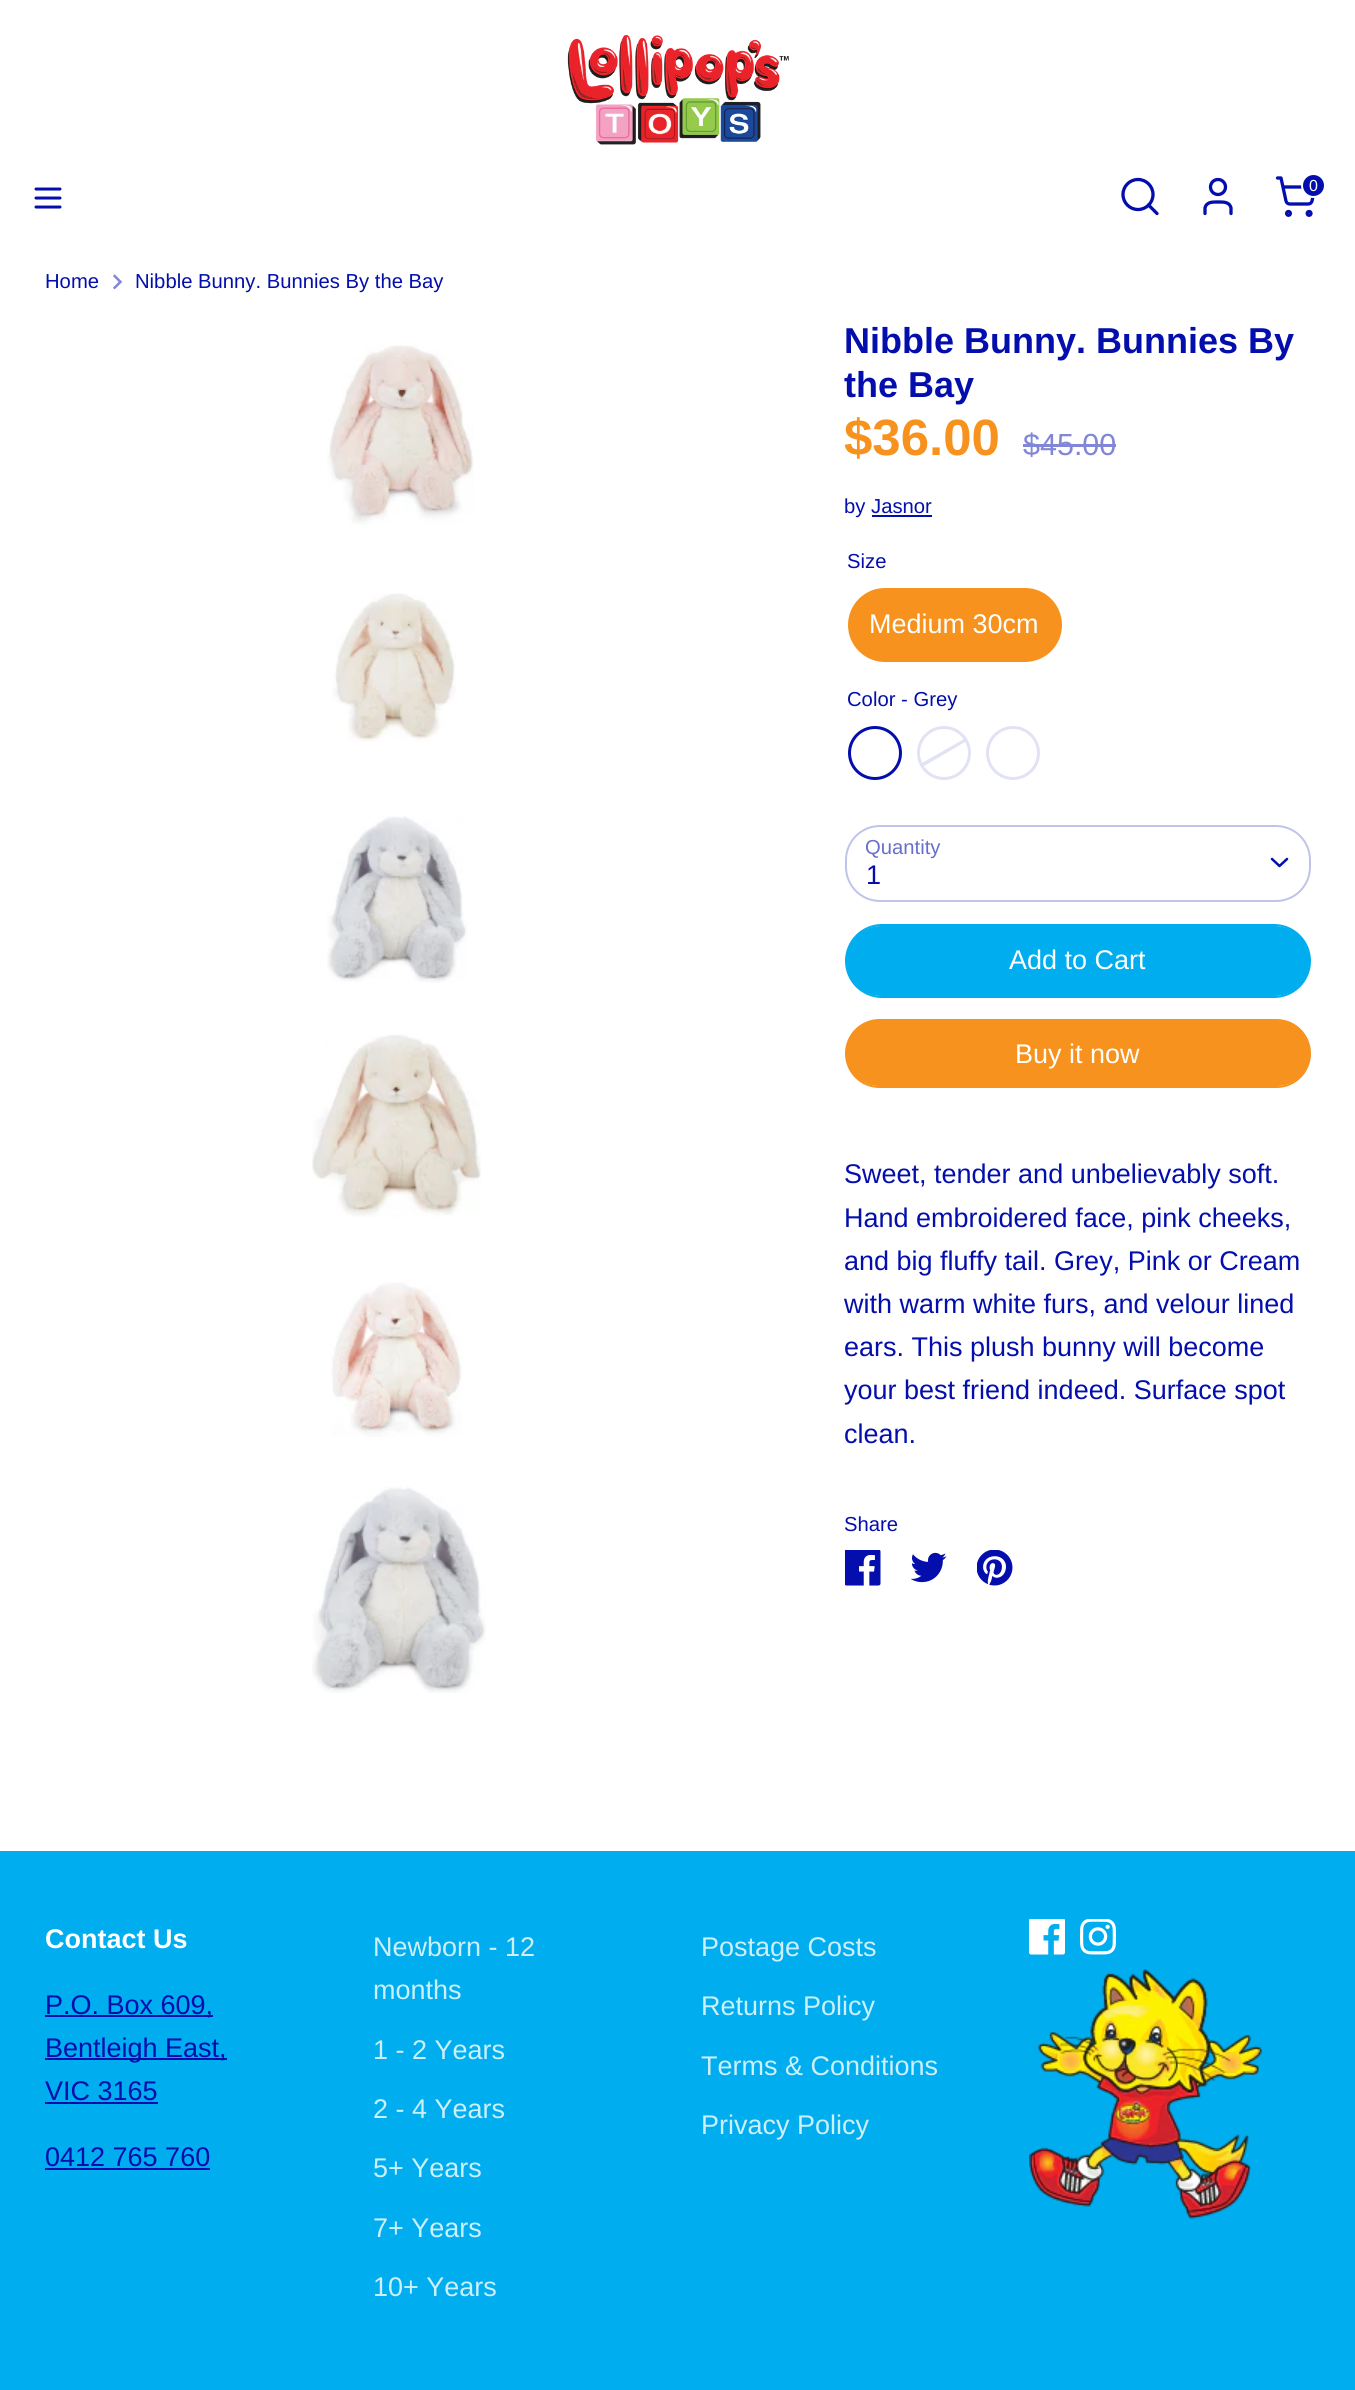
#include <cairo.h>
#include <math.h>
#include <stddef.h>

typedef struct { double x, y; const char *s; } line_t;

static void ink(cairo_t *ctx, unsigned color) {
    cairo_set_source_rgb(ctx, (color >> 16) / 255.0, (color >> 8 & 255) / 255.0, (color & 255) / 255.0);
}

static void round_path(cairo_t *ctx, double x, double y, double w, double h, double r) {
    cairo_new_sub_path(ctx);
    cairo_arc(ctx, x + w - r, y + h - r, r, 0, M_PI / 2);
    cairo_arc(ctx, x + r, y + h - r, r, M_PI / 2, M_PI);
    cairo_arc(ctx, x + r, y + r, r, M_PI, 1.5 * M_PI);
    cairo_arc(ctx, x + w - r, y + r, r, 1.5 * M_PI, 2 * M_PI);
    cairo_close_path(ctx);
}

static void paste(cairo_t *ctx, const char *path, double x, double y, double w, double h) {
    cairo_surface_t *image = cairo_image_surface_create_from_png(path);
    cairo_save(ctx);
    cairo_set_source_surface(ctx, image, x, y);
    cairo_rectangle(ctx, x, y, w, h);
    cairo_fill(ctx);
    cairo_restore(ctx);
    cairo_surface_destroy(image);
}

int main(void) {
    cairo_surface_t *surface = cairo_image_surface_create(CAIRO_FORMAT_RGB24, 1355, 2390);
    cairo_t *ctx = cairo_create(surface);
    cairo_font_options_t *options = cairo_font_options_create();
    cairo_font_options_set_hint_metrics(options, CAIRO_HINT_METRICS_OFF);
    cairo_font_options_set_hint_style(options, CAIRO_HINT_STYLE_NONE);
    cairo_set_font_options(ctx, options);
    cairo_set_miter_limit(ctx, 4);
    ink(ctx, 0xFFFFFF);
    cairo_paint(ctx);
    paste(ctx, "media/1.png", 567, 35, 222, 110);
    cairo_arc(ctx, 1138, 194.5, 15, 0, 2 * M_PI);
    ink(ctx, 0x030EAC);
    cairo_set_line_width(ctx, 3.3);
    cairo_stroke(ctx);
    cairo_new_path(ctx);
    cairo_move_to(ctx, 1157, 213.5);
    cairo_line_to(ctx, 1148.5, 205);
    cairo_set_line_cap(ctx, CAIRO_LINE_CAP_ROUND);
    cairo_set_line_join(ctx, CAIRO_LINE_JOIN_ROUND);
    cairo_stroke(ctx);
    cairo_new_path(ctx);
    cairo_move_to(ctx, 1231, 213.5);
    cairo_line_to(ctx, 1231, 208);
    cairo_curve_to(ctx, 1229.5, 201.5, 1223, 202, 1218, 202);
    cairo_curve_to(ctx, 1213, 202, 1206.5, 201.5, 1205, 208);
    cairo_line_to(ctx, 1205, 213.5);
    cairo_stroke(ctx);
    cairo_arc(ctx, 1218, 187, 7.5, 0, 2 * M_PI);
    cairo_set_line_cap(ctx, CAIRO_LINE_CAP_BUTT);
    cairo_set_line_join(ctx, CAIRO_LINE_JOIN_MITER);
    cairo_stroke(ctx);
    cairo_arc(ctx, 1288.5, 213.4, 1.9, 0, 2 * M_PI);
    cairo_stroke(ctx);
    cairo_arc(ctx, 1309.1, 213.4, 1.9, 0, 2 * M_PI);
    cairo_stroke(ctx);
    cairo_new_path(ctx);
    cairo_move_to(ctx, 1277.5, 178);
    cairo_line_to(ctx, 1281, 178);
    cairo_line_to(ctx, 1286, 201);
    cairo_curve_to(ctx, 1286.5, 203, 1288, 204, 1290, 204);
    cairo_line_to(ctx, 1308, 204);
    cairo_curve_to(ctx, 1310, 204, 1311.5, 203, 1312, 201);
    cairo_line_to(ctx, 1315, 187);
    cairo_line_to(ctx, 1283, 187);
    cairo_set_line_cap(ctx, CAIRO_LINE_CAP_ROUND);
    cairo_set_line_join(ctx, CAIRO_LINE_JOIN_ROUND);
    cairo_stroke(ctx);
    cairo_arc(ctx, 1313.5, 185.5, 11.5, 0, 2 * M_PI);
    cairo_fill_preserve(ctx);
    ink(ctx, 0xFFFFFF);
    cairo_set_line_width(ctx, 2);
    cairo_set_line_cap(ctx, CAIRO_LINE_CAP_BUTT);
    cairo_set_line_join(ctx, CAIRO_LINE_JOIN_MITER);
    cairo_stroke(ctx);
    cairo_select_font_face(ctx, "Liberation Sans", CAIRO_FONT_SLANT_NORMAL, CAIRO_FONT_WEIGHT_NORMAL);
    cairo_set_font_size(ctx, 16);
    cairo_move_to(ctx, 1309, 191);
    cairo_show_text(ctx, "0");
    cairo_new_path(ctx);
    cairo_move_to(ctx, 36, 198);
    cairo_line_to(ctx, 60, 198);
    cairo_move_to(ctx, 36, 189);
    cairo_line_to(ctx, 60, 189);
    cairo_move_to(ctx, 36, 207);
    cairo_line_to(ctx, 60, 207);
    ink(ctx, 0x030EAC);
    cairo_set_line_width(ctx, 3);
    cairo_set_line_cap(ctx, CAIRO_LINE_CAP_ROUND);
    cairo_set_line_join(ctx, CAIRO_LINE_JOIN_ROUND);
    cairo_stroke(ctx);
    cairo_set_font_size(ctx, 20.25);
    cairo_move_to(ctx, 45, 288);
    cairo_show_text(ctx, "Home");
    paste(ctx, "media/2.png", 113, 274, 10, 16);
    cairo_move_to(ctx, 135, 288);
    cairo_show_text(ctx, "Nibble Bunny. Bunnies By the Bay");
    paste(ctx, "media/3.png", 327, 345, 147, 180);
    paste(ctx, "media/4.png", 332, 593, 124, 149);
    paste(ctx, "media/5.png", 327, 816, 141, 167);
    paste(ctx, "media/6.png", 312, 1034, 169, 183);
    paste(ctx, "media/7.png", 331, 1282, 131, 155);
    paste(ctx, "media/8.png", 312, 1486, 174, 207);
    cairo_select_font_face(ctx, "Liberation Sans", CAIRO_FONT_SLANT_NORMAL, CAIRO_FONT_WEIGHT_BOLD);
    cairo_set_font_size(ctx, 36);
    cairo_move_to(ctx, 844, 353);
    cairo_show_text(ctx, "Nibble Bunny. Bunnies By");
    cairo_move_to(ctx, 844, 397);
    cairo_show_text(ctx, "the Bay");
    cairo_set_font_size(ctx, 51);
    ink(ctx, 0xF6921D);
    cairo_move_to(ctx, 844, 455);
    cairo_show_text(ctx, "$36.00");
    cairo_select_font_face(ctx, "Liberation Sans", CAIRO_FONT_SLANT_NORMAL, CAIRO_FONT_WEIGHT_NORMAL);
    cairo_set_font_size(ctx, 30.5);
    ink(ctx, 0x8187D6);
    cairo_move_to(ctx, 1023, 455);
    cairo_show_text(ctx, "$45.00");
    cairo_rectangle(ctx, 1023, 444, 93, 3);
    cairo_fill(ctx);
    cairo_set_font_size(ctx, 20.25);
    ink(ctx, 0x030EAC);
    cairo_move_to(ctx, 844, 513);
    cairo_show_text(ctx, "by Jasnor");
    cairo_rectangle(ctx, 872, 515, 60, 2);
    cairo_fill(ctx);
    cairo_move_to(ctx, 847, 568);
    cairo_show_text(ctx, "Size");
    ink(ctx, 0xF6921D);
    round_path(ctx, 849, 589, 212, 72, 36);
    cairo_fill_preserve(ctx);
    cairo_set_line_width(ctx, 2);
    cairo_set_line_cap(ctx, CAIRO_LINE_CAP_BUTT);
    cairo_set_line_join(ctx, CAIRO_LINE_JOIN_MITER);
    cairo_stroke(ctx);
    cairo_set_font_size(ctx, 27);
    ink(ctx, 0xFFFFFF);
    cairo_move_to(ctx, 869, 633);
    cairo_show_text(ctx, "Medium 30cm");
    cairo_set_font_size(ctx, 20.25);
    ink(ctx, 0x030EAC);
    cairo_move_to(ctx, 847, 706);
    cairo_show_text(ctx, "Color - Grey");
    cairo_new_path(ctx);
    cairo_arc(ctx, 875, 753, 25.5, 0, 2 * M_PI);
    cairo_set_line_width(ctx, 3);
    cairo_stroke(ctx);
    cairo_arc(ctx, 944, 753, 25.5, 0, 2 * M_PI);
    ink(ctx, 0xE1E2F5);
    cairo_stroke(ctx);
    cairo_set_source_rgba(ctx, 0.012, 0.055, 0.675, 0.12);
    cairo_new_path(ctx);
    cairo_move_to(ctx, 924, 766);
    cairo_line_to(ctx, 922, 763);
    cairo_line_to(ctx, 964, 739);
    cairo_line_to(ctx, 965, 742);
    cairo_close_path(ctx);
    cairo_fill(ctx);
    cairo_arc(ctx, 1013, 753, 25.5, 0, 2 * M_PI);
    ink(ctx, 0xE1E2F5);
    cairo_stroke(ctx);
    ink(ctx, 0x686ECD);
    cairo_move_to(ctx, 865, 854);
    cairo_show_text(ctx, "Quantity");
    round_path(ctx, 846, 826, 464, 75, 34);
    ink(ctx, 0xC0C3EA);
    cairo_set_line_width(ctx, 2);
    cairo_stroke(ctx);
    cairo_new_path(ctx);
    cairo_move_to(ctx, 1272, 859);
    cairo_line_to(ctx, 1279.5, 866);
    cairo_line_to(ctx, 1287, 859);
    ink(ctx, 0x030EAC);
    cairo_set_line_width(ctx, 2.5);
    cairo_set_line_cap(ctx, CAIRO_LINE_CAP_ROUND);
    cairo_set_line_join(ctx, CAIRO_LINE_JOIN_ROUND);
    cairo_stroke(ctx);
    cairo_set_font_size(ctx, 27);
    cairo_move_to(ctx, 866, 884);
    cairo_show_text(ctx, "1");
    round_path(ctx, 846, 925, 464, 72, 36);
    ink(ctx, 0x00ADEE);
    cairo_set_line_width(ctx, 2);
    cairo_set_line_cap(ctx, CAIRO_LINE_CAP_BUTT);
    cairo_set_line_join(ctx, CAIRO_LINE_JOIN_MITER);
    cairo_stroke(ctx);
    round_path(ctx, 846, 926, 464, 70, 35);
    cairo_fill(ctx);
    ink(ctx, 0xFFFFFF);
    cairo_move_to(ctx, 1009, 969);
    cairo_show_text(ctx, "Add to Cart");
    round_path(ctx, 846, 1020, 464, 67, 33.5);
    ink(ctx, 0xF6921D);
    cairo_stroke(ctx);
    round_path(ctx, 846, 1020, 464, 66, 33);
    cairo_fill(ctx);
    ink(ctx, 0xFFFFFF);
    cairo_move_to(ctx, 1015, 1063);
    cairo_show_text(ctx, "Buy it now");
    ink(ctx, 0x030EAC);
    {
        static const line_t items[] = {
            {844, 1183, "Sweet, tender and unbelievably soft."},
            {844, 1227, "Hand embroidered face, pink cheeks,"},
            {844, 1270, "and big fluffy tail. Grey, Pink or Cream"},
            {844, 1313, "with warm white furs, and velour lined"},
            {844, 1356, "ears. This plush bunny will become"},
            {844, 1399, "your best friend indeed. Surface spot"},
            {844, 1443, "clean."},
        };
        for (size_t i = 0; i < sizeof items / sizeof *items; i++) {
            cairo_move_to(ctx, items[i].x, items[i].y);
            cairo_show_text(ctx, items[i].s);
        }
    }
    cairo_set_font_size(ctx, 20.25);
    cairo_move_to(ctx, 844, 1531);
    cairo_show_text(ctx, "Share");
    paste(ctx, "media/9.png", 845, 1550, 36, 36);
    paste(ctx, "media/10.png", 911, 1552, 36, 31);
    paste(ctx, "media/11.png", 977, 1550, 36, 36);
    ink(ctx, 0x00ADEE);
    cairo_rectangle(ctx, 0, 1851, 1355, 539);
    cairo_fill(ctx);
    cairo_select_font_face(ctx, "Liberation Sans", CAIRO_FONT_SLANT_NORMAL, CAIRO_FONT_WEIGHT_BOLD);
    cairo_set_font_size(ctx, 27);
    ink(ctx, 0xFFFFFF);
    cairo_move_to(ctx, 45, 1948);
    cairo_show_text(ctx, "Contact Us");
    ink(ctx, 0x030EAC);
    cairo_rectangle(ctx, 45, 2015, 168, 2);
    cairo_fill(ctx);
    cairo_select_font_face(ctx, "Liberation Sans", CAIRO_FONT_SLANT_NORMAL, CAIRO_FONT_WEIGHT_NORMAL);
    cairo_move_to(ctx, 45, 2014);
    cairo_show_text(ctx, "P.O. Box 609,");
    cairo_rectangle(ctx, 45, 2058, 182, 2);
    cairo_fill(ctx);
    cairo_move_to(ctx, 45, 2057);
    cairo_show_text(ctx, "Bentleigh East,");
    cairo_move_to(ctx, 45, 2100);
    cairo_show_text(ctx, "VIC 3165");
    cairo_rectangle(ctx, 45, 2102, 113, 2);
    cairo_fill(ctx);
    cairo_move_to(ctx, 45, 2166);
    cairo_show_text(ctx, "0412 765 760");
    cairo_rectangle(ctx, 45, 2168, 165, 2);
    cairo_fill(ctx);
    ink(ctx, 0xCCEFFC);
    {
        static const line_t items[] = {
            {373, 1956, "Newborn - 12"},
            {373, 1999, "months"},
            {373, 2059, "1 - 2 Years"},
            {373, 2118, "2 - 4 Years"},
            {373, 2177, "5+ Years"},
            {373, 2237, "7+ Years"},
            {373, 2296, "10+ Years"},
            {701, 1956, "Postage Costs"},
            {701, 2015, "Returns Policy"},
            {701, 2075, "Terms & Conditions"},
            {701, 2134, "Privacy Policy"},
        };
        for (size_t i = 0; i < sizeof items / sizeof *items; i++) {
            cairo_move_to(ctx, items[i].x, items[i].y);
            cairo_show_text(ctx, items[i].s);
        }
    }
    paste(ctx, "media/12.png", 1029, 1919, 36, 36);
    paste(ctx, "media/13.png", 1080, 1919, 36, 36);
    paste(ctx, "media/14.png", 1029, 1969, 233, 250);
    cairo_surface_write_to_png(surface, "image.png");
    cairo_font_options_destroy(options);
    cairo_destroy(ctx);
    cairo_surface_destroy(surface);
    return 0;
}
